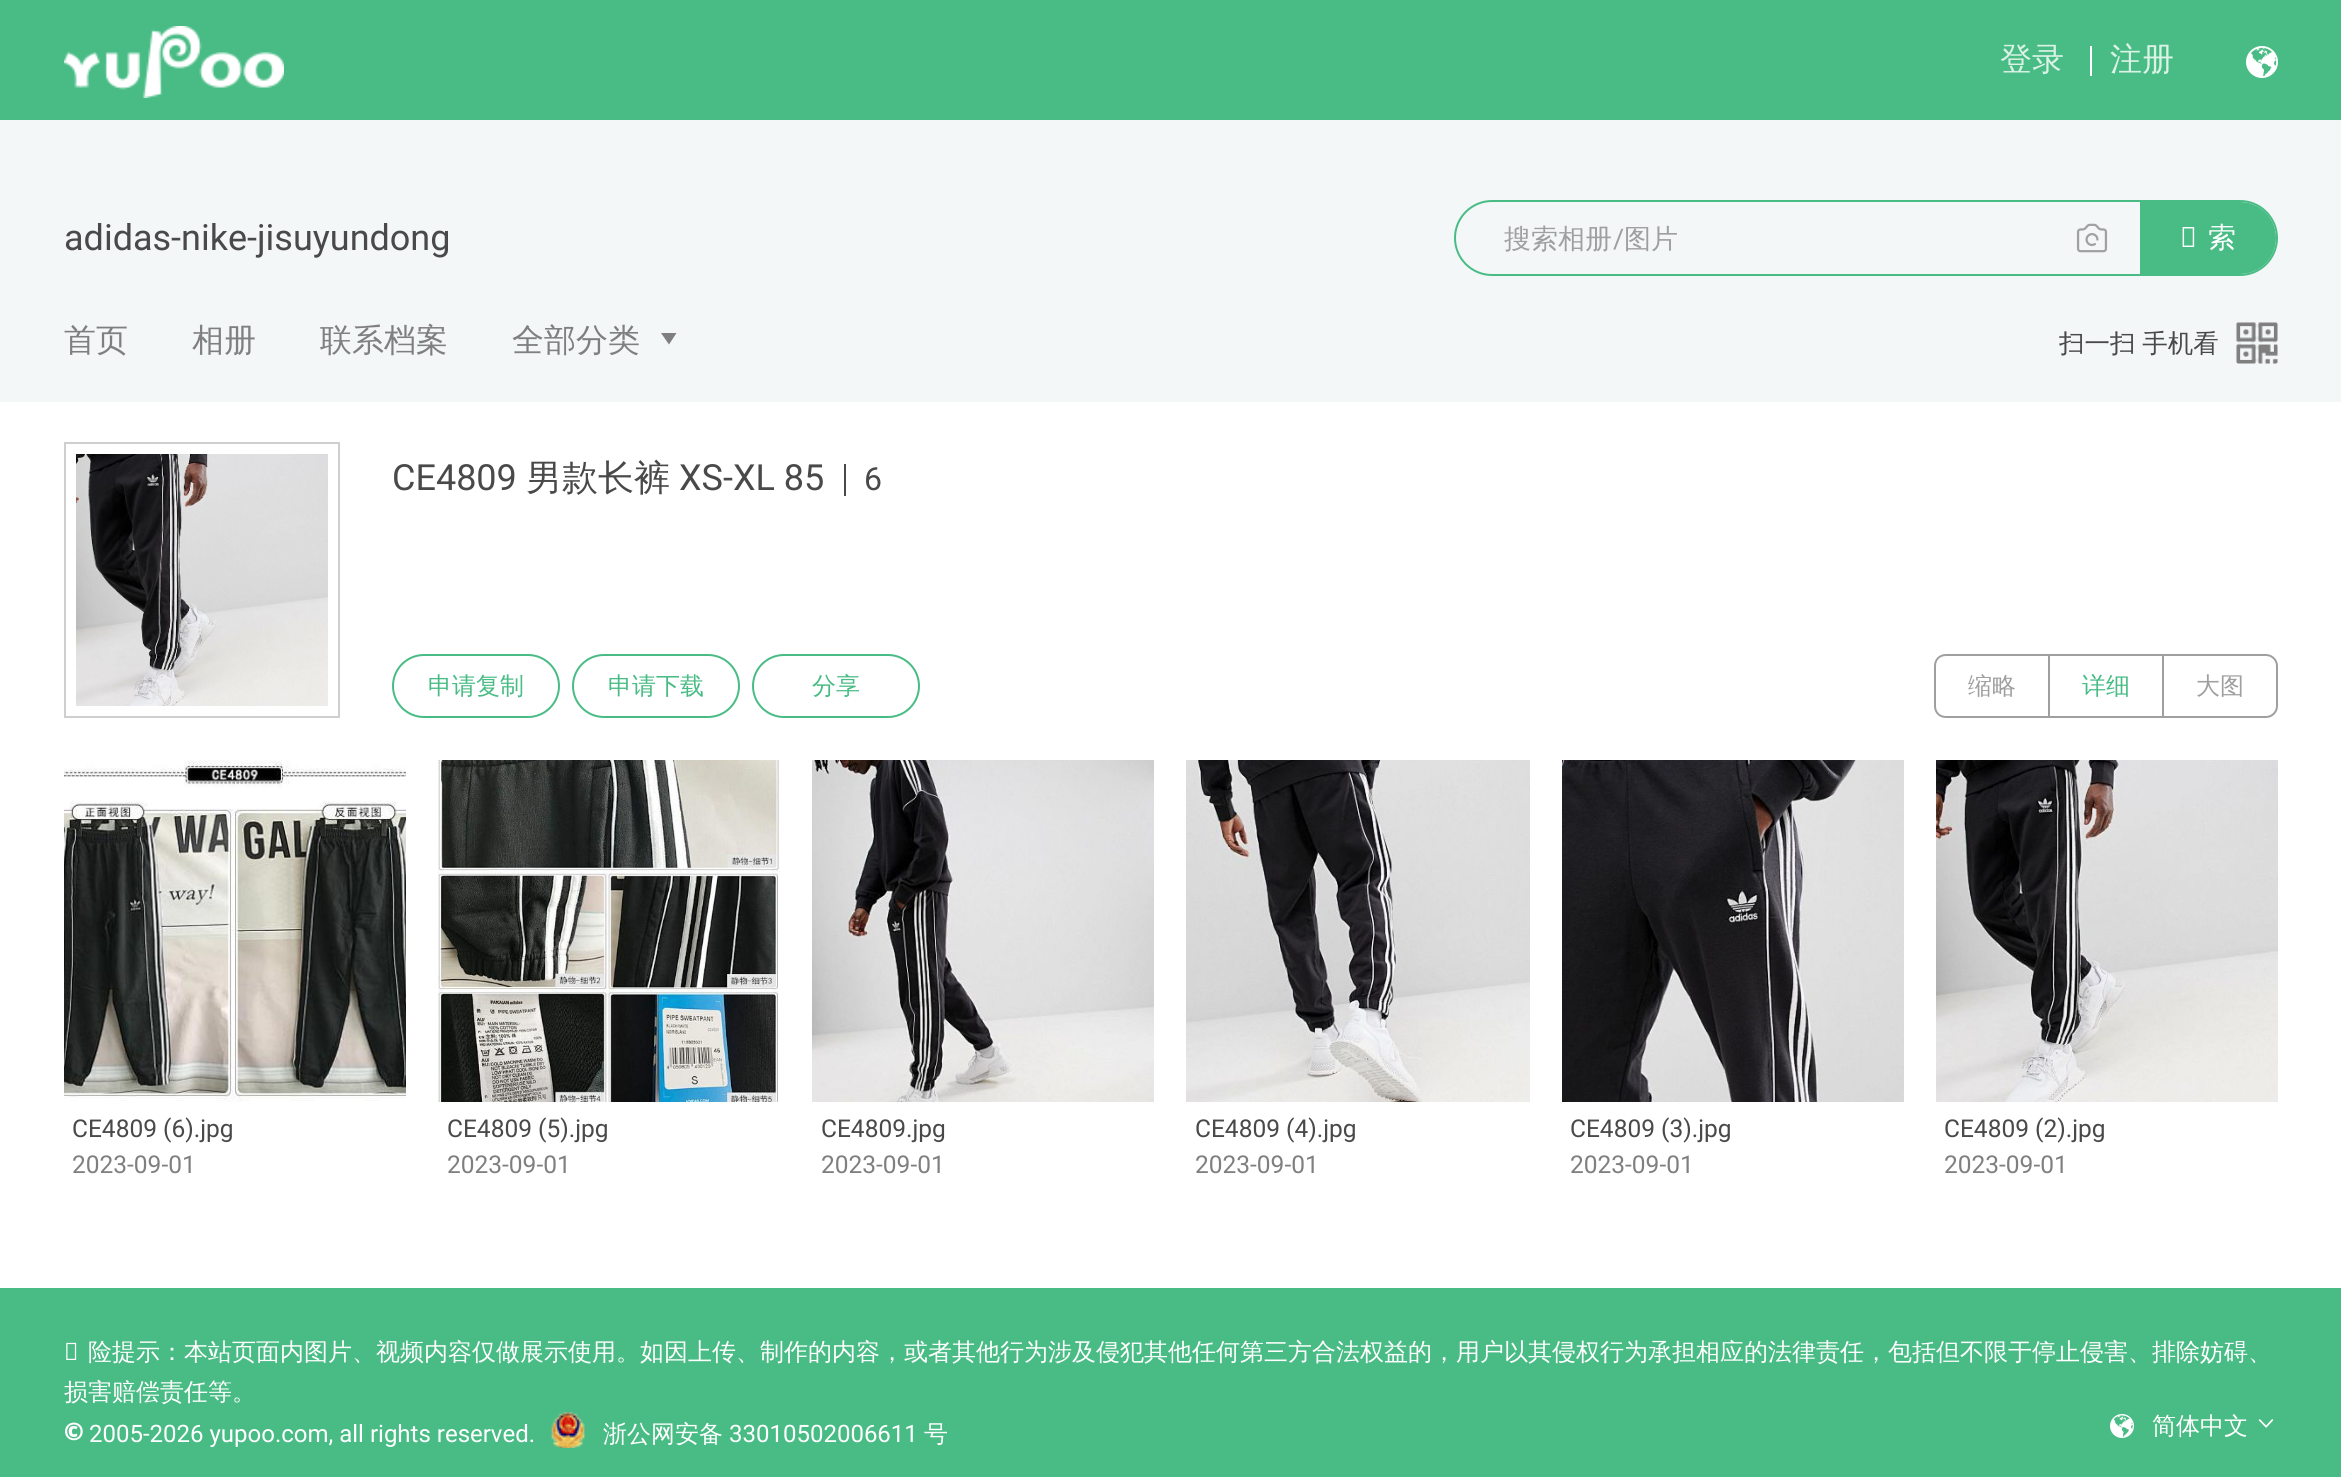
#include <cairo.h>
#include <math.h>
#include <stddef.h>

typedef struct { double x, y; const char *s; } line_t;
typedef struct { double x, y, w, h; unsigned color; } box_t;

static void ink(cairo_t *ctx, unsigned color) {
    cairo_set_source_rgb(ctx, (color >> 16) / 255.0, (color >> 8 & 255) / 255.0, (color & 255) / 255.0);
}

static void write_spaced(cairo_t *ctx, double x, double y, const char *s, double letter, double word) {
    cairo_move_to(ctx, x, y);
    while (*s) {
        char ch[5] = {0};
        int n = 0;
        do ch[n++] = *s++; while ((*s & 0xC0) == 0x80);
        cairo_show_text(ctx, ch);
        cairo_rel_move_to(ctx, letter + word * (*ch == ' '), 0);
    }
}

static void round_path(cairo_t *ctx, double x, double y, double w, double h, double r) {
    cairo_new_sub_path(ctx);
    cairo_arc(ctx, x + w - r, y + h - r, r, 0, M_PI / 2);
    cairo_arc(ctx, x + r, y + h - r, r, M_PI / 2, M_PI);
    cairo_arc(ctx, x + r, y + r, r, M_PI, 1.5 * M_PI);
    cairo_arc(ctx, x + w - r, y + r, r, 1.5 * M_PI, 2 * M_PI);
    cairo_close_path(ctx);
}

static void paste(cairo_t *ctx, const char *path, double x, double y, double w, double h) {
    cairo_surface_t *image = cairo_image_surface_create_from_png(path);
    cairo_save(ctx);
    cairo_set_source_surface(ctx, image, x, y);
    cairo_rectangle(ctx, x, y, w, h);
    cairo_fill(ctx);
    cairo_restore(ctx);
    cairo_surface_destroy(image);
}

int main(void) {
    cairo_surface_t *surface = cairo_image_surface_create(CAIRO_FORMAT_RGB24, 2341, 1477);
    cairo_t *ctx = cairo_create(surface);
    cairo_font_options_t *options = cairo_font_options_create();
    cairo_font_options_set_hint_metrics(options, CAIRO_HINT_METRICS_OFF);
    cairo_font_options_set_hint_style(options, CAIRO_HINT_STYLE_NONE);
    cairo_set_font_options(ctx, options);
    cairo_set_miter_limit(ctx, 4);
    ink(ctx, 0xFFFFFF);
    cairo_paint(ctx);
    ink(ctx, 0x49BC85);
    cairo_rectangle(ctx, 0, 0, 2341, 120);
    cairo_fill(ctx);
    paste(ctx, "media/1.png", 64, 26, 220, 72);
    cairo_select_font_face(ctx, "WenQuanYi Zen Hei Medium", CAIRO_FONT_SLANT_NORMAL, CAIRO_FONT_WEIGHT_NORMAL);
    cairo_set_font_size(ctx, 32);
    ink(ctx, 0xDBF2E7);
    cairo_move_to(ctx, 2000, 70);
    cairo_show_text(ctx, "登录");
    ink(ctx, 0xFFFFFF);
    cairo_rectangle(ctx, 2090, 46, 2, 30);
    cairo_fill(ctx);
    ink(ctx, 0xDBF2E7);
    cairo_move_to(ctx, 2110, 70);
    cairo_show_text(ctx, "注册");
    paste(ctx, "media/2.png", 2246, 46, 32, 32);
    ink(ctx, 0xF3F7F7);
    cairo_rectangle(ctx, 0, 120, 2341, 282);
    cairo_fill(ctx);
    cairo_select_font_face(ctx, "Roboto", CAIRO_FONT_SLANT_NORMAL, CAIRO_FONT_WEIGHT_NORMAL);
    cairo_set_font_size(ctx, 36);
    ink(ctx, 0x494949);
    cairo_move_to(ctx, 64, 250);
    cairo_show_text(ctx, "adidas-nike-jisuyundong");
    round_path(ctx, 1455, 201, 822, 74, 37);
    ink(ctx, 0x49BC85);
    cairo_stroke(ctx);
    cairo_select_font_face(ctx, "WenQuanYi Zen Hei Medium", CAIRO_FONT_SLANT_NORMAL, CAIRO_FONT_WEIGHT_NORMAL);
    cairo_set_font_size(ctx, 27);
    ink(ctx, 0x9F9F9F);
    cairo_move_to(ctx, 1504, 248);
    cairo_show_text(ctx, "搜索相册");
    cairo_select_font_face(ctx, "Roboto", CAIRO_FONT_SLANT_NORMAL, CAIRO_FONT_WEIGHT_NORMAL);
    cairo_move_to(ctx, 1613, 248);
    cairo_show_text(ctx, "/");
    cairo_select_font_face(ctx, "WenQuanYi Zen Hei Medium", CAIRO_FONT_SLANT_NORMAL, CAIRO_FONT_WEIGHT_NORMAL);
    cairo_move_to(ctx, 1624, 248);
    cairo_show_text(ctx, "图片");
    paste(ctx, "media/3.png", 2076, 223, 32, 30);
    ink(ctx, 0x49BC85);
    cairo_new_path(ctx);
    cairo_move_to(ctx, 2141, 203);
    cairo_line_to(ctx, 2240, 203);
    cairo_curve_to(ctx, 2259.5, 203, 2275, 218.5, 2275, 238);
    cairo_curve_to(ctx, 2275, 257.5, 2259.5, 273, 2240, 273);
    cairo_line_to(ctx, 2141, 273);
    cairo_close_path(ctx);
    cairo_fill_preserve(ctx);
    cairo_stroke(ctx);
    cairo_select_font_face(ctx, "Noto Sans", CAIRO_FONT_SLANT_NORMAL, CAIRO_FONT_WEIGHT_NORMAL);
    cairo_set_font_size(ctx, 28);
    ink(ctx, 0xFFFFFF);
    cairo_move_to(ctx, 2180, 247);
    cairo_show_text(ctx, "搜");
    cairo_select_font_face(ctx, "WenQuanYi Zen Hei Medium", CAIRO_FONT_SLANT_NORMAL, CAIRO_FONT_WEIGHT_NORMAL);
    cairo_move_to(ctx, 2208, 247);
    cairo_show_text(ctx, "索");
    cairo_set_font_size(ctx, 32);
    ink(ctx, 0x7F7F7F);
    {
        static const line_t items[] = {
            {64, 351, "首页"},
            {192, 351, "相册"},
            {320, 351, "联系档案"},
            {512, 351, "全部分类"},
        };
        for (size_t i = 0; i < sizeof items / sizeof *items; i++) {
            cairo_move_to(ctx, items[i].x, items[i].y);
            cairo_show_text(ctx, items[i].s);
        }
    }
    cairo_new_path(ctx);
    cairo_move_to(ctx, 669, 344.5);
    cairo_line_to(ctx, 661, 333);
    cairo_line_to(ctx, 676.5, 333);
    cairo_close_path(ctx);
    cairo_fill(ctx);
    cairo_set_font_size(ctx, 25.5);
    ink(ctx, 0x494949);
    write_spaced(ctx, 2059, 352, "扫一扫 手机看", 0, -1);
    paste(ctx, "media/4.png", 2236, 322, 42, 42);
    cairo_rectangle(ctx, 65, 443, 274, 274);
    ink(ctx, 0xCFCFCF);
    cairo_stroke(ctx);
    paste(ctx, "media/5.png", 76, 454, 252, 252);
    cairo_select_font_face(ctx, "Roboto", CAIRO_FONT_SLANT_NORMAL, CAIRO_FONT_WEIGHT_NORMAL);
    cairo_set_font_size(ctx, 36);
    ink(ctx, 0x494949);
    cairo_move_to(ctx, 392, 490);
    cairo_show_text(ctx, "CE4809");
    cairo_select_font_face(ctx, "WenQuanYi Zen Hei Medium", CAIRO_FONT_SLANT_NORMAL, CAIRO_FONT_WEIGHT_NORMAL);
    cairo_move_to(ctx, 526, 490);
    cairo_show_text(ctx, "男款长裤");
    cairo_select_font_face(ctx, "Roboto", CAIRO_FONT_SLANT_NORMAL, CAIRO_FONT_WEIGHT_NORMAL);
    cairo_move_to(ctx, 679, 490);
    cairo_show_text(ctx, "XS-XL 85");
    cairo_rectangle(ctx, 844, 464, 2, 32);
    cairo_fill(ctx);
    cairo_set_font_size(ctx, 32);
    cairo_move_to(ctx, 864, 490);
    cairo_show_text(ctx, "6");
    round_path(ctx, 393, 655, 166, 62, 31);
    ink(ctx, 0x49BC85);
    cairo_stroke(ctx);
    cairo_select_font_face(ctx, "WenQuanYi Zen Hei Medium", CAIRO_FONT_SLANT_NORMAL, CAIRO_FONT_WEIGHT_NORMAL);
    cairo_set_font_size(ctx, 24);
    cairo_move_to(ctx, 428, 694);
    cairo_show_text(ctx, "申请复制");
    round_path(ctx, 573, 655, 166, 62, 31);
    cairo_stroke(ctx);
    cairo_move_to(ctx, 608, 694);
    cairo_show_text(ctx, "申请下载");
    round_path(ctx, 753, 655, 166, 62, 31);
    cairo_stroke(ctx);
    cairo_move_to(ctx, 812, 694);
    cairo_show_text(ctx, "分享");
    ink(ctx, 0x9F9F9F);
    cairo_set_fill_rule(ctx, CAIRO_FILL_RULE_EVEN_ODD);
    cairo_new_path(ctx);
    cairo_move_to(ctx, 1946, 654);
    cairo_line_to(ctx, 2048, 654);
    cairo_line_to(ctx, 2048, 718);
    cairo_line_to(ctx, 1946, 718);
    cairo_curve_to(ctx, 1939, 718, 1934, 713, 1934, 706);
    cairo_line_to(ctx, 1934, 666);
    cairo_curve_to(ctx, 1934, 659, 1939, 654, 1946, 654);
    cairo_close_path(ctx);
    cairo_move_to(ctx, 1946, 656);
    cairo_line_to(ctx, 2048, 656);
    cairo_line_to(ctx, 2048, 716);
    cairo_line_to(ctx, 1946, 716);
    cairo_curve_to(ctx, 1940, 716, 1936, 712, 1936, 706);
    cairo_line_to(ctx, 1936, 666);
    cairo_curve_to(ctx, 1936, 660, 1940, 656, 1946, 656);
    cairo_close_path(ctx);
    cairo_fill(ctx);
    cairo_move_to(ctx, 1968, 694);
    cairo_show_text(ctx, "缩略");
    {
        static const box_t items[] = {
            {2048, 654, 114, 2, 0x9F9F9F},
            {2048, 716, 114, 2, 0x9F9F9F},
            {2048, 654, 2, 64, 0x9F9F9F},
        };
        for (size_t i = 0; i < sizeof items / sizeof *items; i++) {
            ink(ctx, items[i].color);
            cairo_rectangle(ctx, items[i].x, items[i].y, items[i].w, items[i].h);
            cairo_fill(ctx);
        }
    }
    ink(ctx, 0x49BC85);
    cairo_move_to(ctx, 2082, 694);
    cairo_show_text(ctx, "详细");
    cairo_new_path(ctx);
    cairo_move_to(ctx, 2163, 655);
    cairo_line_to(ctx, 2266, 655);
    cairo_curve_to(ctx, 2272, 655, 2277, 660, 2277, 666);
    cairo_line_to(ctx, 2277, 706);
    cairo_curve_to(ctx, 2277, 712, 2272, 717, 2266, 717);
    cairo_line_to(ctx, 2163, 717);
    cairo_close_path(ctx);
    ink(ctx, 0x9F9F9F);
    cairo_stroke(ctx);
    cairo_move_to(ctx, 2196, 694);
    cairo_show_text(ctx, "大图");
    paste(ctx, "media/6.png", 64, 760, 342, 342);
    cairo_select_font_face(ctx, "Roboto", CAIRO_FONT_SLANT_NORMAL, CAIRO_FONT_WEIGHT_NORMAL);
    cairo_set_font_size(ctx, 24.5);
    ink(ctx, 0x494949);
    cairo_move_to(ctx, 72, 1137);
    cairo_show_text(ctx, "CE4809 (6).jpg");
    ink(ctx, 0x7F7F7F);
    cairo_move_to(ctx, 72, 1173);
    cairo_show_text(ctx, "2023-09-01");
    paste(ctx, "media/7.png", 438, 760, 342, 342);
    ink(ctx, 0x494949);
    cairo_move_to(ctx, 447, 1137);
    cairo_show_text(ctx, "CE4809 (5).jpg");
    ink(ctx, 0x7F7F7F);
    cairo_move_to(ctx, 447, 1173);
    cairo_show_text(ctx, "2023-09-01");
    paste(ctx, "media/8.png", 812, 760, 342, 342);
    ink(ctx, 0x494949);
    cairo_move_to(ctx, 821, 1137);
    cairo_show_text(ctx, "CE4809.jpg");
    ink(ctx, 0x7F7F7F);
    cairo_move_to(ctx, 821, 1173);
    cairo_show_text(ctx, "2023-09-01");
    paste(ctx, "media/9.png", 1186, 760, 344, 342);
    ink(ctx, 0x494949);
    cairo_move_to(ctx, 1195, 1137);
    cairo_show_text(ctx, "CE4809 (4).jpg");
    ink(ctx, 0x7F7F7F);
    cairo_move_to(ctx, 1195, 1173);
    cairo_show_text(ctx, "2023-09-01");
    paste(ctx, "media/10.png", 1562, 760, 342, 342);
    ink(ctx, 0x494949);
    cairo_move_to(ctx, 1570, 1137);
    cairo_show_text(ctx, "CE4809 (3).jpg");
    ink(ctx, 0x7F7F7F);
    cairo_move_to(ctx, 1570, 1173);
    cairo_show_text(ctx, "2023-09-01");
    paste(ctx, "media/11.png", 1936, 760, 342, 342);
    ink(ctx, 0x494949);
    cairo_move_to(ctx, 1944, 1137);
    cairo_show_text(ctx, "CE4809 (2).jpg");
    ink(ctx, 0x7F7F7F);
    cairo_move_to(ctx, 1944, 1173);
    cairo_show_text(ctx, "2023-09-01");
    ink(ctx, 0x49BC85);
    cairo_rectangle(ctx, 0, 1288, 2341, 189);
    cairo_fill(ctx);
    cairo_select_font_face(ctx, "Noto Sans", CAIRO_FONT_SLANT_NORMAL, CAIRO_FONT_WEIGHT_NORMAL);
    cairo_set_font_size(ctx, 24);
    ink(ctx, 0xFFFFFF);
    cairo_move_to(ctx, 64, 1360);
    cairo_show_text(ctx, "风");
    cairo_select_font_face(ctx, "WenQuanYi Zen Hei Medium", CAIRO_FONT_SLANT_NORMAL, CAIRO_FONT_WEIGHT_NORMAL);
    cairo_move_to(ctx, 88, 1360);
    cairo_show_text(ctx, "险提示：本站页面内图片、视频内容仅做展示使用。如因上传、制作的内容，或者其他行为涉及侵犯其他任何第三方合法权益的，用户以其侵权行为承担相应的法律责任，包括但不限于停止侵害、排除妨碍、");
    cairo_move_to(ctx, 64, 1400);
    cairo_show_text(ctx, "损害赔偿责任等。");
    cairo_select_font_face(ctx, "Noto Sans Black", CAIRO_FONT_SLANT_NORMAL, CAIRO_FONT_WEIGHT_NORMAL);
    cairo_move_to(ctx, 64, 1440);
    cairo_show_text(ctx, "©");
    cairo_select_font_face(ctx, "Roboto", CAIRO_FONT_SLANT_NORMAL, CAIRO_FONT_WEIGHT_NORMAL);
    cairo_move_to(ctx, 89, 1442);
    cairo_show_text(ctx, "2005-2026 yupoo.com, all rights reserved.");
    paste(ctx, "media/12.png", 551, 1412, 34, 36);
    cairo_select_font_face(ctx, "WenQuanYi Zen Hei Medium", CAIRO_FONT_SLANT_NORMAL, CAIRO_FONT_WEIGHT_NORMAL);
    cairo_move_to(ctx, 603, 1442);
    cairo_show_text(ctx, "浙公网安备");
    cairo_select_font_face(ctx, "Roboto", CAIRO_FONT_SLANT_NORMAL, CAIRO_FONT_WEIGHT_NORMAL);
    cairo_move_to(ctx, 729, 1442);
    cairo_show_text(ctx, "33010502006611");
    cairo_select_font_face(ctx, "WenQuanYi Zen Hei Medium", CAIRO_FONT_SLANT_NORMAL, CAIRO_FONT_WEIGHT_NORMAL);
    cairo_move_to(ctx, 924, 1442);
    cairo_show_text(ctx, "号");
    paste(ctx, "media/13.png", 2110, 1414, 24, 24);
    cairo_move_to(ctx, 2152, 1434);
    cairo_show_text(ctx, "简体中文");
    paste(ctx, "media/14.png", 2258, 1419, 16, 9);
    cairo_surface_write_to_png(surface, "image.png");
    cairo_font_options_destroy(options);
    cairo_destroy(ctx);
    cairo_surface_destroy(surface);
    return 0;
}
